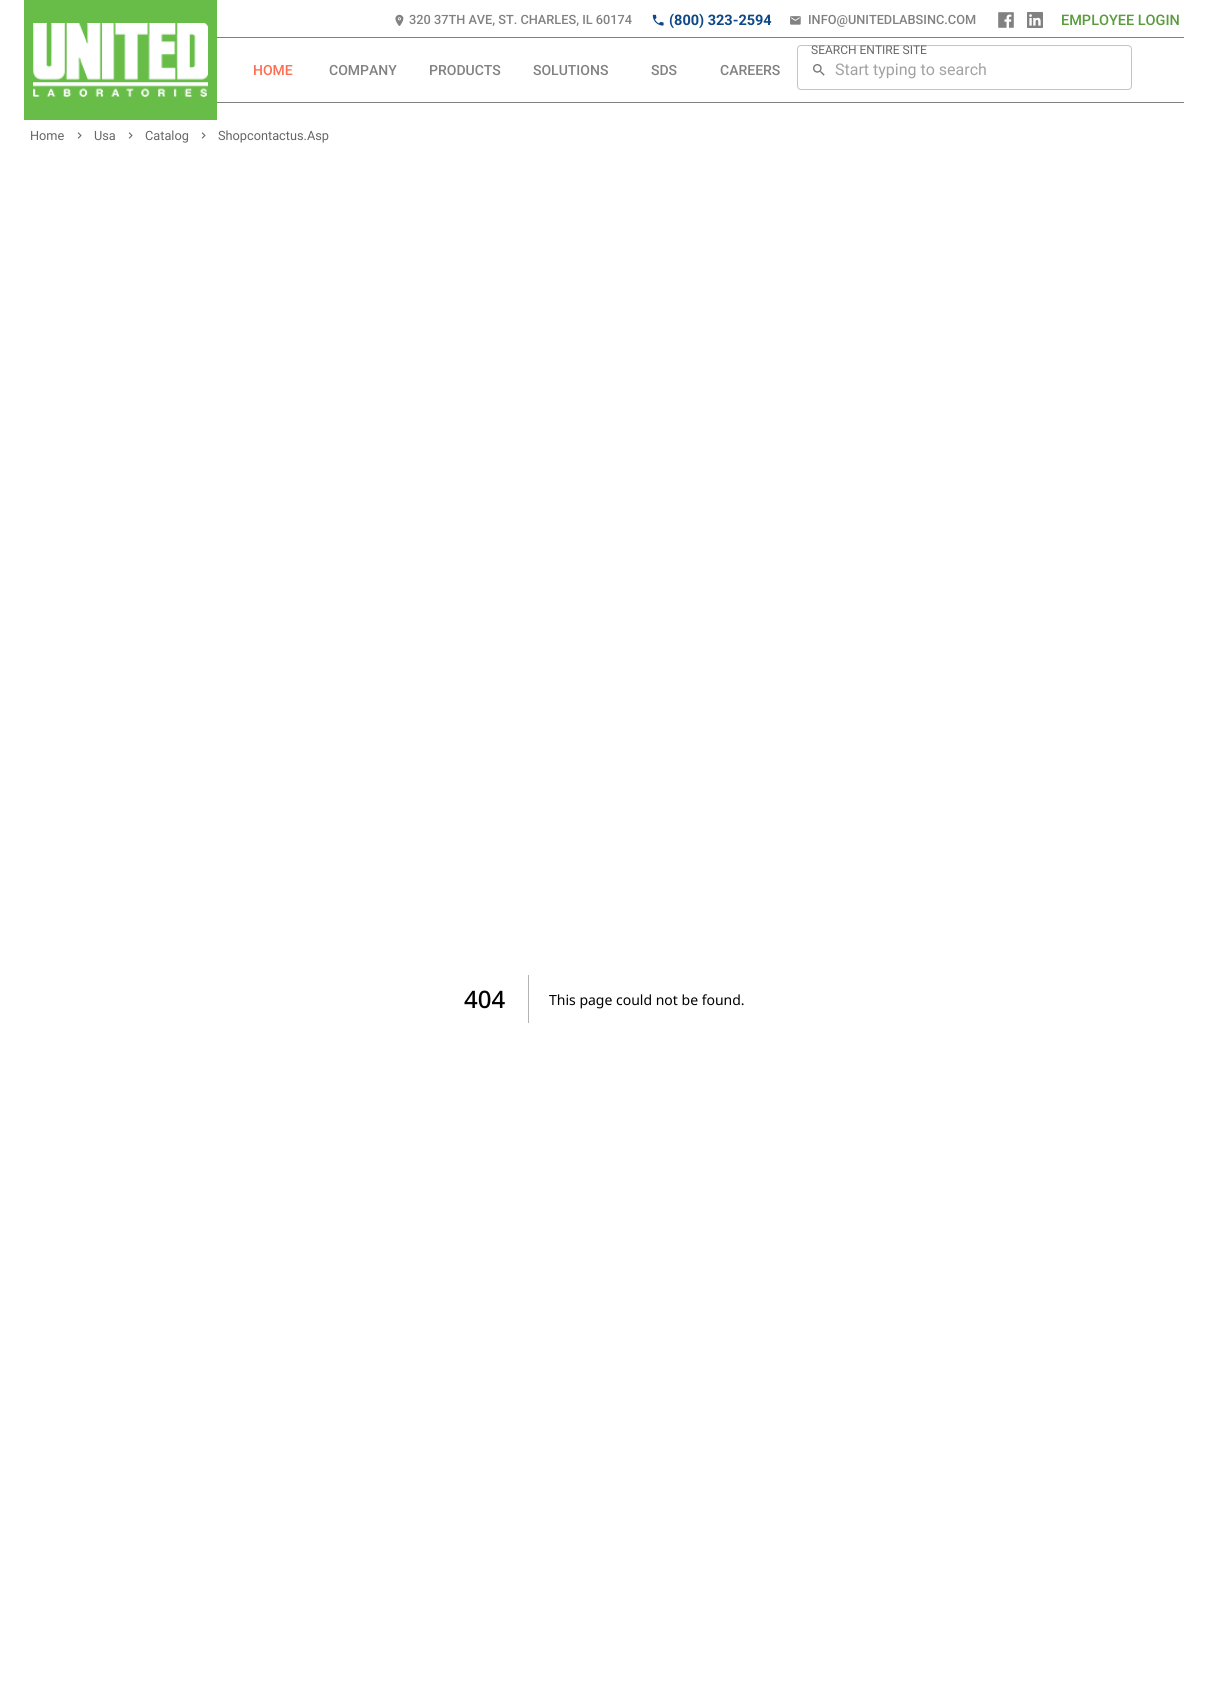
#include <cairo.h>
#include <math.h>
#include <stddef.h>

typedef struct { double x, y; const char *s; } line_t;

static void ink(cairo_t *ctx, unsigned color) {
    cairo_set_source_rgb(ctx, (color >> 16) / 255.0, (color >> 8 & 255) / 255.0, (color & 255) / 255.0);
}

static void round_path(cairo_t *ctx, double x, double y, double w, double h, double r) {
    cairo_new_sub_path(ctx);
    cairo_arc(ctx, x + w - r, y + h - r, r, 0, M_PI / 2);
    cairo_arc(ctx, x + r, y + h - r, r, M_PI / 2, M_PI);
    cairo_arc(ctx, x + r, y + r, r, M_PI, 1.5 * M_PI);
    cairo_arc(ctx, x + w - r, y + r, r, 1.5 * M_PI, 2 * M_PI);
    cairo_close_path(ctx);
}

static void paste(cairo_t *ctx, const char *path, double x, double y, double w, double h) {
    cairo_surface_t *image = cairo_image_surface_create_from_png(path);
    cairo_save(ctx);
    cairo_set_source_surface(ctx, image, x, y);
    cairo_rectangle(ctx, x, y, w, h);
    cairo_fill(ctx);
    cairo_restore(ctx);
    cairo_surface_destroy(image);
}

int main(void) {
    cairo_surface_t *surface = cairo_image_surface_create(CAIRO_FORMAT_RGB24, 1208, 1695);
    cairo_t *ctx = cairo_create(surface);
    cairo_font_options_t *options = cairo_font_options_create();
    cairo_font_options_set_hint_metrics(options, CAIRO_HINT_METRICS_OFF);
    cairo_font_options_set_hint_style(options, CAIRO_HINT_STYLE_NONE);
    cairo_set_font_options(ctx, options);
    cairo_set_miter_limit(ctx, 4);
    ink(ctx, 0xFFFFFF);
    cairo_paint(ctx);
    ink(ctx, 0x68BD49);
    cairo_rectangle(ctx, 24, 0, 193, 120);
    cairo_fill(ctx);
    paste(ctx, "media/1.png", 33, 23, 175, 74);
    paste(ctx, "media/2.png", 395, 14, 9, 12);
    cairo_select_font_face(ctx, "Roboto Medium", CAIRO_FONT_SLANT_NORMAL, CAIRO_FONT_WEIGHT_NORMAL);
    cairo_set_font_size(ctx, 12.75);
    ink(ctx, 0x818181);
    cairo_move_to(ctx, 409, 24);
    cairo_show_text(ctx, "320 37TH AVE, ST. CHARLES, IL 60174");
    paste(ctx, "media/3.png", 652, 14, 12, 12);
    cairo_select_font_face(ctx, "Roboto", CAIRO_FONT_SLANT_NORMAL, CAIRO_FONT_WEIGHT_BOLD);
    cairo_set_font_size(ctx, 14.5);
    ink(ctx, 0x0E4888);
    cairo_move_to(ctx, 669, 25);
    cairo_show_text(ctx, "(800) 323-2594");
    paste(ctx, "media/4.png", 790, 16, 11, 9);
    cairo_select_font_face(ctx, "Roboto Medium", CAIRO_FONT_SLANT_NORMAL, CAIRO_FONT_WEIGHT_NORMAL);
    cairo_set_font_size(ctx, 12.75);
    ink(ctx, 0x818181);
    cairo_move_to(ctx, 808, 24);
    cairo_show_text(ctx, "INFO@UNITEDLABSINC.COM");
    paste(ctx, "media/5.png", 998, 12, 16, 16);
    paste(ctx, "media/6.png", 1027, 12, 16, 16);
    cairo_set_font_size(ctx, 14.5);
    ink(ctx, 0x5A9B3D);
    cairo_move_to(ctx, 1061, 25);
    cairo_show_text(ctx, "EMPLOYEE LOGIN");
    ink(ctx, 0x818181);
    cairo_rectangle(ctx, 217, 37, 967, 1);
    cairo_fill(ctx);
    cairo_rectangle(ctx, 217, 102, 967, 1);
    cairo_fill(ctx);
    cairo_set_font_size(ctx, 14);
    ink(ctx, 0xFD6D52);
    cairo_move_to(ctx, 253, 75);
    cairo_show_text(ctx, "HOME");
    ink(ctx, 0x818181);
    {
        static const line_t items[] = {
            {329, 75, "COMPANY"},
            {429, 75, "PRODUCTS"},
            {533, 75, "SOLUTIONS"},
            {651, 75, "SDS"},
            {720, 75, "CAREERS"},
        };
        for (size_t i = 0; i < sizeof items / sizeof *items; i++) {
            cairo_move_to(ctx, items[i].x, items[i].y);
            cairo_show_text(ctx, items[i].s);
        }
    }
    paste(ctx, "media/7.png", 813, 64, 12, 12);
    round_path(ctx, 797.5, 45.5, 334, 44, 3.5);
    ink(ctx, 0xC4C4C4);
    cairo_set_line_width(ctx, 1);
    cairo_stroke(ctx);
    cairo_select_font_face(ctx, "Roboto", CAIRO_FONT_SLANT_NORMAL, CAIRO_FONT_WEIGHT_NORMAL);
    cairo_set_font_size(ctx, 12);
    ink(ctx, 0x666666);
    cairo_move_to(ctx, 811, 54);
    cairo_show_text(ctx, "SEARCH ENTIRE SITE");
    cairo_set_font_size(ctx, 16);
    ink(ctx, 0xA2A2A2);
    cairo_move_to(ctx, 835, 75);
    cairo_show_text(ctx, "Start typing to search");
    cairo_set_font_size(ctx, 12.75);
    ink(ctx, 0x666666);
    cairo_move_to(ctx, 30, 140);
    cairo_show_text(ctx, "Home");
    paste(ctx, "media/8.png", 77, 132, 5, 7);
    cairo_move_to(ctx, 94, 140);
    cairo_show_text(ctx, "Usa");
    paste(ctx, "media/8.png", 128, 132, 5, 7);
    cairo_move_to(ctx, 145, 140);
    cairo_show_text(ctx, "Catalog");
    paste(ctx, "media/8.png", 201, 132, 5, 7);
    cairo_move_to(ctx, 218, 140);
    cairo_show_text(ctx, "Shopcontactus.Asp");
    ink(ctx, 0xB3B3B3);
    cairo_rectangle(ctx, 528, 975, 1, 48);
    cairo_fill(ctx);
    cairo_select_font_face(ctx, "Noto Sans Medium", CAIRO_FONT_SLANT_NORMAL, CAIRO_FONT_WEIGHT_NORMAL);
    cairo_set_font_size(ctx, 24);
    ink(ctx, 0x000000);
    cairo_move_to(ctx, 464, 1008);
    cairo_show_text(ctx, "404");
    cairo_select_font_face(ctx, "Noto Sans", CAIRO_FONT_SLANT_NORMAL, CAIRO_FONT_WEIGHT_NORMAL);
    cairo_set_font_size(ctx, 14);
    cairo_move_to(ctx, 549, 1005);
    cairo_show_text(ctx, "This page could not be found.");
    cairo_surface_write_to_png(surface, "image.png");
    cairo_font_options_destroy(options);
    cairo_destroy(ctx);
    cairo_surface_destroy(surface);
    return 0;
}
